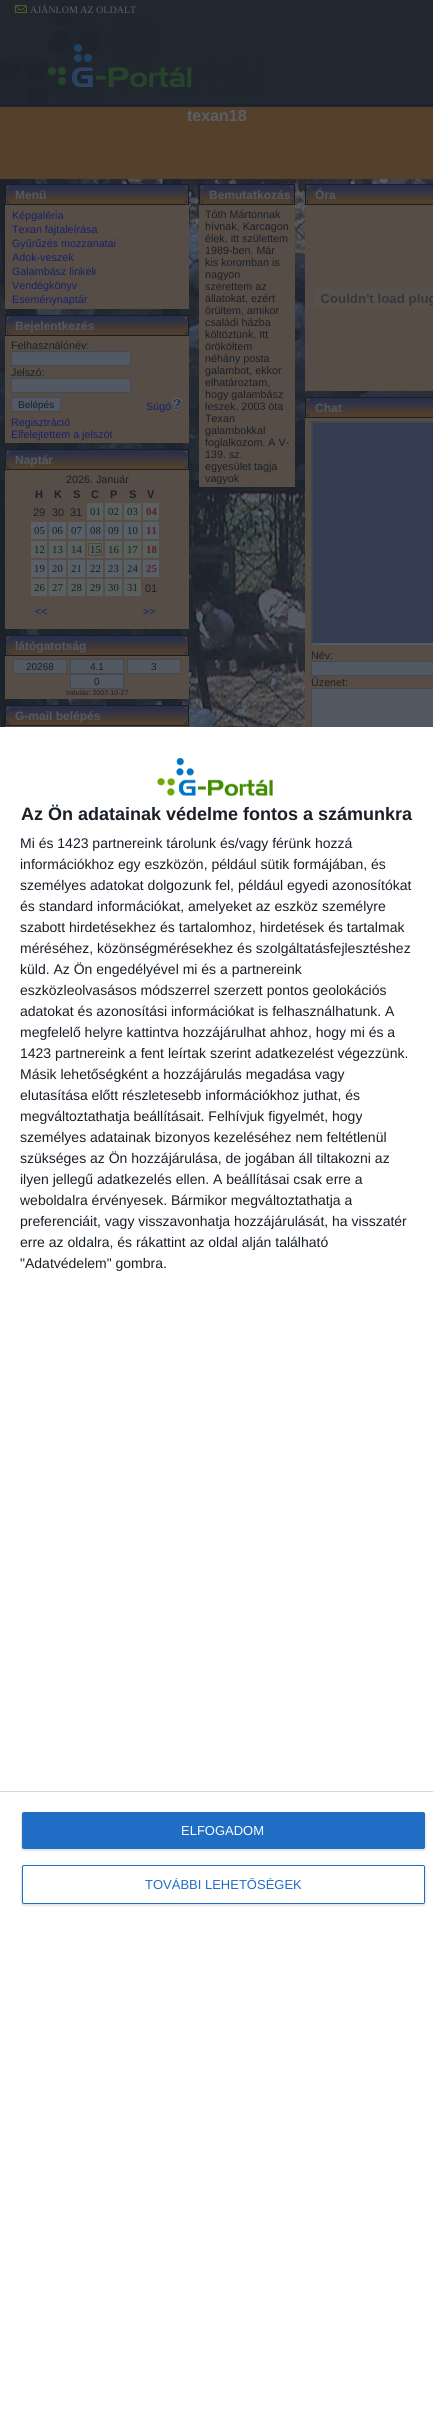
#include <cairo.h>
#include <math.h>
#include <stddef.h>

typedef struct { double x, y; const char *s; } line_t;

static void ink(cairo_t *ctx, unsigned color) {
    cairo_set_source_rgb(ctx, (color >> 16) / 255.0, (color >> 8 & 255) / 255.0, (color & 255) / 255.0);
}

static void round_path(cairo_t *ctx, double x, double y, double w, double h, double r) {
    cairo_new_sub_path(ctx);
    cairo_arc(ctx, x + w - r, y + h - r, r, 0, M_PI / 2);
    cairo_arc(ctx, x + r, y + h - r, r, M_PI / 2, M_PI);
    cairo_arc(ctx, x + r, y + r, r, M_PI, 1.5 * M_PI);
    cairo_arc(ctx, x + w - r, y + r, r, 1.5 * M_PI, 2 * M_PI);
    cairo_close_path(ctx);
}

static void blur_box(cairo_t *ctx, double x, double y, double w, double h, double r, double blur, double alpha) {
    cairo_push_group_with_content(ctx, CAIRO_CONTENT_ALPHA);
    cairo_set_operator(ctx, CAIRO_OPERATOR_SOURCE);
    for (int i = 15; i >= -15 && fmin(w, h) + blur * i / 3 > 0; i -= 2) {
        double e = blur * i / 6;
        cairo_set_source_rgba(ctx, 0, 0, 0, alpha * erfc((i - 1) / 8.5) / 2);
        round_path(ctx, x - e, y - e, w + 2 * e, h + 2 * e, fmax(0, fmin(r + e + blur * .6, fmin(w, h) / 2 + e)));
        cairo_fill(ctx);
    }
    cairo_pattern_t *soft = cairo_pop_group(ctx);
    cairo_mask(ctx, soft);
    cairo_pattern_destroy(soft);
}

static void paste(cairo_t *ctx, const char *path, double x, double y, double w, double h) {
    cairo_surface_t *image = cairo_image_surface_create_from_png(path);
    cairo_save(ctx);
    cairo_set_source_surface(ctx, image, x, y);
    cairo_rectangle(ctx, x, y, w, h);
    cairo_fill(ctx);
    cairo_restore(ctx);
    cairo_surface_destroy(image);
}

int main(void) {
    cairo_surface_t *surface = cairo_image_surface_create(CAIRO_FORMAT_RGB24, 433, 2424);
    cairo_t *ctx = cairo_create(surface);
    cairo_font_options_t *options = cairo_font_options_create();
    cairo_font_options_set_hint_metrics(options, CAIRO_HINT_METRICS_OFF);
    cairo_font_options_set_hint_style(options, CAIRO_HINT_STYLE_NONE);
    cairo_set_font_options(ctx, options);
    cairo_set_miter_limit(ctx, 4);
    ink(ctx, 0xFFFFFF);
    cairo_paint(ctx);
    paste(ctx, "media/1.png", 0, 179, 433, 548);
    ink(ctx, 0x21272F);
    cairo_rectangle(ctx, 0, 0, 433, 104);
    cairo_fill(ctx);
    ink(ctx, 0x1E242D);
    cairo_rectangle(ctx, 0, 104, 433, 3);
    cairo_fill(ctx);
    paste(ctx, "media/2.png", 0, 2, 263, 102);
    paste(ctx, "media/3.png", 15, 5, 12, 8);
    cairo_select_font_face(ctx, "Liberation Serif", CAIRO_FONT_SLANT_NORMAL, CAIRO_FONT_WEIGHT_NORMAL);
    cairo_set_font_size(ctx, 10);
    ink(ctx, 0x595F67);
    cairo_move_to(ctx, 30, 13);
    cairo_show_text(ctx, "AJÁNLOM AZ OLDALT");
    ink(ctx, 0x55402B);
    cairo_rectangle(ctx, 0, 107, 433, 72);
    cairo_fill(ctx);
    cairo_select_font_face(ctx, "Liberation Sans", CAIRO_FONT_SLANT_NORMAL, CAIRO_FONT_WEIGHT_BOLD);
    cairo_set_font_size(ctx, 16);
    ink(ctx, 0x595F67);
    cairo_move_to(ctx, 187, 121);
    cairo_show_text(ctx, "texan18");
    paste(ctx, "media/4.png", 5, 184, 5, 21);
    paste(ctx, "media/5.png", 10, 184, 174, 21);
    cairo_set_font_size(ctx, 12);
    ink(ctx, 0x535962);
    cairo_move_to(ctx, 15, 199);
    cairo_show_text(ctx, "Menü");
    paste(ctx, "media/6.png", 184, 184, 5, 21);
    ink(ctx, 0x564E46);
    cairo_rectangle(ctx, 5, 205, 184, 104);
    cairo_fill(ctx);
    cairo_select_font_face(ctx, "Liberation Sans", CAIRO_FONT_SLANT_NORMAL, CAIRO_FONT_WEIGHT_NORMAL);
    cairo_set_font_size(ctx, 10.75);
    ink(ctx, 0x191F67);
    {
        static const line_t items[] = {
            {12, 219, "Képgaléria"},
            {12, 233, "Texan fajtaleírása"},
            {12, 247, "Gyűrűzés mozzanatai"},
            {12, 261, "Adok-veszek"},
            {12, 275, "Galambász linkek"},
            {12, 289, "Vendégkönyv"},
            {12, 303, "Eseménynaptár"},
        };
        for (size_t i = 0; i < sizeof items / sizeof *items; i++) {
            cairo_move_to(ctx, items[i].x, items[i].y);
            cairo_show_text(ctx, items[i].s);
        }
    }
    paste(ctx, "media/4.png", 5, 315, 5, 21);
    paste(ctx, "media/5.png", 10, 315, 174, 21);
    cairo_select_font_face(ctx, "Liberation Sans", CAIRO_FONT_SLANT_NORMAL, CAIRO_FONT_WEIGHT_BOLD);
    cairo_set_font_size(ctx, 12);
    ink(ctx, 0x535962);
    cairo_move_to(ctx, 15, 330);
    cairo_show_text(ctx, "Bejelentkezés");
    paste(ctx, "media/6.png", 184, 315, 5, 21);
    ink(ctx, 0x564E46);
    cairo_rectangle(ctx, 5, 336, 184, 107);
    cairo_fill(ctx);
    cairo_select_font_face(ctx, "Liberation Sans", CAIRO_FONT_SLANT_NORMAL, CAIRO_FONT_WEIGHT_NORMAL);
    cairo_set_font_size(ctx, 10.75);
    ink(ctx, 0x191F27);
    cairo_move_to(ctx, 11, 349);
    cairo_show_text(ctx, "Felhasználónév:");
    ink(ctx, 0x535962);
    cairo_rectangle(ctx, 11.5, 351.5, 119, 14);
    cairo_fill_preserve(ctx);
    ink(ctx, 0x434952);
    cairo_set_line_width(ctx, 1);
    cairo_stroke(ctx);
    ink(ctx, 0x191F27);
    cairo_move_to(ctx, 11, 376);
    cairo_show_text(ctx, "Jelszó:");
    ink(ctx, 0x535962);
    cairo_rectangle(ctx, 11.5, 378.5, 119, 14);
    cairo_fill_preserve(ctx);
    ink(ctx, 0x434952);
    cairo_stroke(ctx);
    ink(ctx, 0x535962);
    cairo_rectangle(ctx, 11.5, 397.5, 49, 14);
    cairo_fill_preserve(ctx);
    ink(ctx, 0x434952);
    cairo_stroke(ctx);
    cairo_set_font_size(ctx, 10);
    ink(ctx, 0x191F27);
    cairo_move_to(ctx, 18, 408);
    cairo_show_text(ctx, "Belépés");
    cairo_set_font_size(ctx, 10.75);
    ink(ctx, 0x191F67);
    cairo_move_to(ctx, 146, 410);
    cairo_show_text(ctx, "Súgó");
    paste(ctx, "media/7.png", 172, 398, 10, 12);
    cairo_move_to(ctx, 11, 426);
    cairo_show_text(ctx, "Regisztráció");
    cairo_move_to(ctx, 11, 438);
    cairo_show_text(ctx, "Elfelejtettem a jelszót");
    paste(ctx, "media/4.png", 5, 449, 5, 21);
    paste(ctx, "media/5.png", 10, 449, 174, 21);
    cairo_select_font_face(ctx, "Liberation Sans", CAIRO_FONT_SLANT_NORMAL, CAIRO_FONT_WEIGHT_BOLD);
    cairo_set_font_size(ctx, 12);
    ink(ctx, 0x535962);
    cairo_move_to(ctx, 15, 464);
    cairo_show_text(ctx, "Naptár");
    paste(ctx, "media/6.png", 184, 449, 5, 21);
    ink(ctx, 0x564E46);
    cairo_rectangle(ctx, 5, 470, 184, 159);
    cairo_fill(ctx);
    cairo_select_font_face(ctx, "Liberation Sans", CAIRO_FONT_SLANT_NORMAL, CAIRO_FONT_WEIGHT_NORMAL);
    cairo_set_font_size(ctx, 10.75);
    ink(ctx, 0x191F27);
    cairo_move_to(ctx, 66, 483);
    cairo_show_text(ctx, "2026. Január");
    cairo_select_font_face(ctx, "Liberation Sans", CAIRO_FONT_SLANT_NORMAL, CAIRO_FONT_WEIGHT_BOLD);
    cairo_set_font_size(ctx, 11);
    {
        static const line_t items[] = {
            {35, 498, "H"},
            {54, 498, "K"},
            {73, 498, "S"},
            {91, 498, "C"},
            {110, 498, "P"},
            {129, 498, "S"},
            {147, 498, "V"},
        };
        for (size_t i = 0; i < sizeof items / sizeof *items; i++) {
            cairo_move_to(ctx, items[i].x, items[i].y);
            cairo_show_text(ctx, items[i].s);
        }
    }
    cairo_select_font_face(ctx, "Liberation Sans", CAIRO_FONT_SLANT_NORMAL, CAIRO_FONT_WEIGHT_NORMAL);
    {
        static const line_t items[] = {
            {33, 516, "29"},
            {52, 516, "30"},
            {70, 516, "31"},
        };
        for (size_t i = 0; i < sizeof items / sizeof *items; i++) {
            cairo_move_to(ctx, items[i].x, items[i].y);
            cairo_show_text(ctx, items[i].s);
        }
    }
    ink(ctx, 0x595F5A);
    cairo_rectangle(ctx, 87, 503, 16, 17);
    cairo_fill(ctx);
    cairo_rectangle(ctx, 88.5, 505.5, 13, 12);
    ink(ctx, 0x595F67);
    cairo_stroke(ctx);
    cairo_select_font_face(ctx, "Liberation Serif", CAIRO_FONT_SLANT_NORMAL, CAIRO_FONT_WEIGHT_NORMAL);
    cairo_set_font_size(ctx, 10.75);
    ink(ctx, 0x191F27);
    cairo_move_to(ctx, 90, 515);
    cairo_show_text(ctx, "01");
    ink(ctx, 0x595F5A);
    cairo_rectangle(ctx, 105, 503, 17, 17);
    cairo_fill(ctx);
    cairo_rectangle(ctx, 106.5, 505.5, 14, 12);
    ink(ctx, 0x595F67);
    cairo_stroke(ctx);
    ink(ctx, 0x191F27);
    cairo_move_to(ctx, 108, 515);
    cairo_show_text(ctx, "02");
    ink(ctx, 0x595F5A);
    cairo_rectangle(ctx, 124, 503, 17, 17);
    cairo_fill(ctx);
    cairo_rectangle(ctx, 125.5, 505.5, 14, 12);
    ink(ctx, 0x595F67);
    cairo_stroke(ctx);
    ink(ctx, 0x191F27);
    cairo_move_to(ctx, 127, 515);
    cairo_show_text(ctx, "03");
    ink(ctx, 0x595F5A);
    cairo_rectangle(ctx, 143, 503, 16, 17);
    cairo_fill(ctx);
    cairo_rectangle(ctx, 144.5, 505.5, 13, 12);
    ink(ctx, 0x595F67);
    cairo_stroke(ctx);
    cairo_select_font_face(ctx, "Liberation Serif", CAIRO_FONT_SLANT_NORMAL, CAIRO_FONT_WEIGHT_BOLD);
    ink(ctx, 0x591F27);
    cairo_move_to(ctx, 146, 515);
    cairo_show_text(ctx, "04");
    ink(ctx, 0x595F67);
    cairo_rectangle(ctx, 31, 522, 16, 17);
    cairo_fill(ctx);
    cairo_select_font_face(ctx, "Liberation Serif", CAIRO_FONT_SLANT_NORMAL, CAIRO_FONT_WEIGHT_NORMAL);
    ink(ctx, 0x191F27);
    cairo_move_to(ctx, 34, 534);
    cairo_show_text(ctx, "05");
    ink(ctx, 0x595F67);
    cairo_rectangle(ctx, 49, 522, 17, 17);
    cairo_fill(ctx);
    ink(ctx, 0x191F27);
    cairo_move_to(ctx, 52, 534);
    cairo_show_text(ctx, "06");
    ink(ctx, 0x595F67);
    cairo_rectangle(ctx, 68, 522, 17, 17);
    cairo_fill(ctx);
    ink(ctx, 0x191F27);
    cairo_move_to(ctx, 71, 534);
    cairo_show_text(ctx, "07");
    ink(ctx, 0x595F67);
    cairo_rectangle(ctx, 87, 522, 16, 17);
    cairo_fill(ctx);
    ink(ctx, 0x191F27);
    cairo_move_to(ctx, 90, 534);
    cairo_show_text(ctx, "08");
    ink(ctx, 0x595F67);
    cairo_rectangle(ctx, 105, 522, 17, 17);
    cairo_fill(ctx);
    ink(ctx, 0x191F27);
    cairo_move_to(ctx, 108, 534);
    cairo_show_text(ctx, "09");
    ink(ctx, 0x595F67);
    cairo_rectangle(ctx, 124, 522, 17, 17);
    cairo_fill(ctx);
    ink(ctx, 0x191F27);
    cairo_move_to(ctx, 127, 534);
    cairo_show_text(ctx, "10");
    ink(ctx, 0x595F67);
    cairo_rectangle(ctx, 143, 522, 16, 17);
    cairo_fill(ctx);
    cairo_select_font_face(ctx, "Liberation Serif", CAIRO_FONT_SLANT_NORMAL, CAIRO_FONT_WEIGHT_BOLD);
    ink(ctx, 0x591F27);
    cairo_move_to(ctx, 146, 534);
    cairo_show_text(ctx, "11");
    ink(ctx, 0x595F5A);
    cairo_rectangle(ctx, 31, 541, 16, 17);
    cairo_fill(ctx);
    cairo_rectangle(ctx, 32.5, 543.5, 13, 12);
    ink(ctx, 0x595F67);
    cairo_stroke(ctx);
    cairo_select_font_face(ctx, "Liberation Serif", CAIRO_FONT_SLANT_NORMAL, CAIRO_FONT_WEIGHT_NORMAL);
    ink(ctx, 0x191F27);
    cairo_move_to(ctx, 34, 553);
    cairo_show_text(ctx, "12");
    ink(ctx, 0x595F5A);
    cairo_rectangle(ctx, 49, 541, 17, 17);
    cairo_fill(ctx);
    cairo_rectangle(ctx, 50.5, 543.5, 14, 12);
    ink(ctx, 0x595F67);
    cairo_stroke(ctx);
    ink(ctx, 0x191F27);
    cairo_move_to(ctx, 52, 553);
    cairo_show_text(ctx, "13");
    ink(ctx, 0x595F5A);
    cairo_rectangle(ctx, 68, 541, 17, 17);
    cairo_fill(ctx);
    cairo_rectangle(ctx, 69.5, 543.5, 14, 12);
    ink(ctx, 0x595F67);
    cairo_stroke(ctx);
    ink(ctx, 0x191F27);
    cairo_move_to(ctx, 71, 553);
    cairo_show_text(ctx, "14");
    ink(ctx, 0x595F5A);
    cairo_rectangle(ctx, 87, 541, 16, 17);
    cairo_fill(ctx);
    cairo_rectangle(ctx, 88.5, 543.5, 13, 12);
    ink(ctx, 0x594527);
    cairo_stroke(ctx);
    ink(ctx, 0x191F27);
    cairo_move_to(ctx, 90, 553);
    cairo_show_text(ctx, "15");
    ink(ctx, 0x595F5A);
    cairo_rectangle(ctx, 105, 541, 17, 17);
    cairo_fill(ctx);
    cairo_rectangle(ctx, 106.5, 543.5, 14, 12);
    ink(ctx, 0x595F67);
    cairo_stroke(ctx);
    ink(ctx, 0x191F27);
    cairo_move_to(ctx, 108, 553);
    cairo_show_text(ctx, "16");
    ink(ctx, 0x595F5A);
    cairo_rectangle(ctx, 124, 541, 17, 17);
    cairo_fill(ctx);
    cairo_rectangle(ctx, 125.5, 543.5, 14, 12);
    ink(ctx, 0x595F67);
    cairo_stroke(ctx);
    ink(ctx, 0x191F27);
    cairo_move_to(ctx, 127, 553);
    cairo_show_text(ctx, "17");
    ink(ctx, 0x595F5A);
    cairo_rectangle(ctx, 143, 541, 16, 17);
    cairo_fill(ctx);
    cairo_rectangle(ctx, 144.5, 543.5, 13, 12);
    ink(ctx, 0x595F67);
    cairo_stroke(ctx);
    cairo_select_font_face(ctx, "Liberation Serif", CAIRO_FONT_SLANT_NORMAL, CAIRO_FONT_WEIGHT_BOLD);
    ink(ctx, 0x591F27);
    cairo_move_to(ctx, 146, 553);
    cairo_show_text(ctx, "18");
    ink(ctx, 0x595F67);
    cairo_rectangle(ctx, 31, 560, 16, 17);
    cairo_fill(ctx);
    cairo_select_font_face(ctx, "Liberation Serif", CAIRO_FONT_SLANT_NORMAL, CAIRO_FONT_WEIGHT_NORMAL);
    ink(ctx, 0x191F27);
    cairo_move_to(ctx, 34, 572);
    cairo_show_text(ctx, "19");
    ink(ctx, 0x595F67);
    cairo_rectangle(ctx, 49, 560, 17, 17);
    cairo_fill(ctx);
    ink(ctx, 0x191F27);
    cairo_move_to(ctx, 52, 572);
    cairo_show_text(ctx, "20");
    ink(ctx, 0x595F67);
    cairo_rectangle(ctx, 68, 560, 17, 17);
    cairo_fill(ctx);
    ink(ctx, 0x191F27);
    cairo_move_to(ctx, 71, 572);
    cairo_show_text(ctx, "21");
    ink(ctx, 0x595F67);
    cairo_rectangle(ctx, 87, 560, 16, 17);
    cairo_fill(ctx);
    ink(ctx, 0x191F27);
    cairo_move_to(ctx, 90, 572);
    cairo_show_text(ctx, "22");
    ink(ctx, 0x595F67);
    cairo_rectangle(ctx, 105, 560, 17, 17);
    cairo_fill(ctx);
    ink(ctx, 0x191F27);
    cairo_move_to(ctx, 108, 572);
    cairo_show_text(ctx, "23");
    ink(ctx, 0x595F67);
    cairo_rectangle(ctx, 124, 560, 17, 17);
    cairo_fill(ctx);
    ink(ctx, 0x191F27);
    cairo_move_to(ctx, 127, 572);
    cairo_show_text(ctx, "24");
    ink(ctx, 0x595F67);
    cairo_rectangle(ctx, 143, 560, 16, 17);
    cairo_fill(ctx);
    cairo_select_font_face(ctx, "Liberation Serif", CAIRO_FONT_SLANT_NORMAL, CAIRO_FONT_WEIGHT_BOLD);
    ink(ctx, 0x591F27);
    cairo_move_to(ctx, 146, 572);
    cairo_show_text(ctx, "25");
    ink(ctx, 0x595F5A);
    cairo_rectangle(ctx, 31, 579, 16, 17);
    cairo_fill(ctx);
    cairo_rectangle(ctx, 32.5, 581.5, 13, 12);
    ink(ctx, 0x595F67);
    cairo_stroke(ctx);
    cairo_select_font_face(ctx, "Liberation Serif", CAIRO_FONT_SLANT_NORMAL, CAIRO_FONT_WEIGHT_NORMAL);
    ink(ctx, 0x191F27);
    cairo_move_to(ctx, 34, 591);
    cairo_show_text(ctx, "26");
    ink(ctx, 0x595F5A);
    cairo_rectangle(ctx, 49, 579, 17, 17);
    cairo_fill(ctx);
    cairo_rectangle(ctx, 50.5, 581.5, 14, 12);
    ink(ctx, 0x595F67);
    cairo_stroke(ctx);
    ink(ctx, 0x191F27);
    cairo_move_to(ctx, 52, 591);
    cairo_show_text(ctx, "27");
    ink(ctx, 0x595F5A);
    cairo_rectangle(ctx, 68, 579, 17, 17);
    cairo_fill(ctx);
    cairo_rectangle(ctx, 69.5, 581.5, 14, 12);
    ink(ctx, 0x595F67);
    cairo_stroke(ctx);
    ink(ctx, 0x191F27);
    cairo_move_to(ctx, 71, 591);
    cairo_show_text(ctx, "28");
    ink(ctx, 0x595F5A);
    cairo_rectangle(ctx, 87, 579, 16, 17);
    cairo_fill(ctx);
    cairo_rectangle(ctx, 88.5, 581.5, 13, 12);
    ink(ctx, 0x595F67);
    cairo_stroke(ctx);
    ink(ctx, 0x191F27);
    cairo_move_to(ctx, 90, 591);
    cairo_show_text(ctx, "29");
    ink(ctx, 0x595F5A);
    cairo_rectangle(ctx, 105, 579, 17, 17);
    cairo_fill(ctx);
    cairo_rectangle(ctx, 106.5, 581.5, 14, 12);
    ink(ctx, 0x595F67);
    cairo_stroke(ctx);
    ink(ctx, 0x191F27);
    cairo_move_to(ctx, 108, 591);
    cairo_show_text(ctx, "30");
    ink(ctx, 0x595F5A);
    cairo_rectangle(ctx, 124, 579, 17, 17);
    cairo_fill(ctx);
    cairo_rectangle(ctx, 125.5, 581.5, 14, 12);
    ink(ctx, 0x595F67);
    cairo_stroke(ctx);
    ink(ctx, 0x191F27);
    cairo_move_to(ctx, 127, 591);
    cairo_show_text(ctx, "31");
    cairo_select_font_face(ctx, "Liberation Sans", CAIRO_FONT_SLANT_NORMAL, CAIRO_FONT_WEIGHT_NORMAL);
    cairo_set_font_size(ctx, 11);
    cairo_move_to(ctx, 145, 592);
    cairo_show_text(ctx, "01");
    cairo_set_font_size(ctx, 10.75);
    ink(ctx, 0x191F67);
    cairo_move_to(ctx, 35, 615);
    cairo_show_text(ctx, "<<");
    cairo_move_to(ctx, 143, 615);
    cairo_show_text(ctx, ">>");
    paste(ctx, "media/4.png", 5, 635, 5, 21);
    paste(ctx, "media/5.png", 10, 635, 174, 21);
    cairo_select_font_face(ctx, "Liberation Sans", CAIRO_FONT_SLANT_NORMAL, CAIRO_FONT_WEIGHT_BOLD);
    cairo_set_font_size(ctx, 12);
    ink(ctx, 0x535962);
    cairo_move_to(ctx, 15, 650);
    cairo_show_text(ctx, "látógatotság");
    paste(ctx, "media/6.png", 184, 635, 5, 21);
    ink(ctx, 0x564E46);
    cairo_rectangle(ctx, 5, 656, 184, 43);
    cairo_fill(ctx);
    ink(ctx, 0x535962);
    cairo_rectangle(ctx, 13.5, 659.5, 53, 14);
    cairo_fill_preserve(ctx);
    ink(ctx, 0x434952);
    cairo_stroke(ctx);
    cairo_select_font_face(ctx, "Liberation Sans", CAIRO_FONT_SLANT_NORMAL, CAIRO_FONT_WEIGHT_NORMAL);
    cairo_set_font_size(ctx, 10);
    ink(ctx, 0x191F27);
    cairo_move_to(ctx, 26, 670);
    cairo_show_text(ctx, "20268");
    ink(ctx, 0x535962);
    cairo_rectangle(ctx, 70.5, 659.5, 53, 14);
    cairo_fill_preserve(ctx);
    ink(ctx, 0x434952);
    cairo_stroke(ctx);
    ink(ctx, 0x191F27);
    cairo_move_to(ctx, 90, 670);
    cairo_show_text(ctx, "4.1");
    ink(ctx, 0x535962);
    cairo_rectangle(ctx, 127.5, 659.5, 53, 14);
    cairo_fill_preserve(ctx);
    ink(ctx, 0x434952);
    cairo_stroke(ctx);
    ink(ctx, 0x191F27);
    cairo_move_to(ctx, 151, 670);
    cairo_show_text(ctx, "3");
    ink(ctx, 0x535962);
    cairo_rectangle(ctx, 70.5, 674.5, 53, 14);
    cairo_fill_preserve(ctx);
    ink(ctx, 0x434952);
    cairo_stroke(ctx);
    ink(ctx, 0x191F27);
    cairo_move_to(ctx, 94, 685);
    cairo_show_text(ctx, "0");
    cairo_set_font_size(ctx, 7);
    cairo_move_to(ctx, 66, 695);
    cairo_show_text(ctx, "Indulás: 2007-10-27");
    paste(ctx, "media/4.png", 5, 705, 5, 21);
    paste(ctx, "media/5.png", 10, 705, 174, 21);
    cairo_select_font_face(ctx, "Liberation Sans", CAIRO_FONT_SLANT_NORMAL, CAIRO_FONT_WEIGHT_BOLD);
    cairo_set_font_size(ctx, 12);
    ink(ctx, 0x535962);
    cairo_move_to(ctx, 15, 720);
    cairo_show_text(ctx, "G-mail belépés");
    paste(ctx, "media/6.png", 184, 705, 5, 21);
    ink(ctx, 0x564E46);
    cairo_rectangle(ctx, 5, 726, 184, 1);
    cairo_fill(ctx);
    paste(ctx, "media/4.png", 199, 184, 5, 21);
    paste(ctx, "media/8.png", 204, 184, 86, 21);
    ink(ctx, 0x535962);
    cairo_move_to(ctx, 209, 199);
    cairo_show_text(ctx, "Bemutatkozás");
    paste(ctx, "media/6.png", 290, 184, 5, 21);
    ink(ctx, 0x564E46);
    cairo_rectangle(ctx, 199, 205, 96, 282);
    cairo_fill(ctx);
    cairo_select_font_face(ctx, "Liberation Sans", CAIRO_FONT_SLANT_NORMAL, CAIRO_FONT_WEIGHT_NORMAL);
    cairo_set_font_size(ctx, 10.75);
    ink(ctx, 0x191F27);
    {
        static const line_t items[] = {
            {205, 218, "Tóth Mártonnak"},
            {205, 230, "hívnak, Karcagon"},
            {205, 242, "élek, itt születtem"},
            {205, 254, "1989-ben. Már"},
            {205, 266, "kis koromban is"},
            {205, 278, "nagyon"},
            {205, 290, "szerettem az"},
            {205, 302, "állatokat, ezért"},
            {205, 314, "örültem, amikor"},
            {205, 326, "családi házba"},
            {205, 338, "költöztünk. Itt"},
            {205, 350, "örököltem"},
            {205, 362, "néhány posta"},
            {205, 374, "galambot, ekkor"},
            {205, 386, "elhatároztam,"},
            {205, 398, "hogy galambász"},
            {205, 410, "leszek. 2003 óta"},
            {205, 422, "Texan"},
            {205, 434, "galambokkal"},
            {205, 446, "foglalkozom. A V-"},
            {205, 458, "139. sz."},
            {205, 470, "egyesület tagja"},
            {205, 482, "vagyok"},
        };
        for (size_t i = 0; i < sizeof items / sizeof *items; i++) {
            cairo_move_to(ctx, items[i].x, items[i].y);
            cairo_show_text(ctx, items[i].s);
        }
    }
    paste(ctx, "media/4.png", 305, 184, 5, 21);
    paste(ctx, "media/9.png", 310, 184, 123, 21);
    cairo_select_font_face(ctx, "Liberation Sans", CAIRO_FONT_SLANT_NORMAL, CAIRO_FONT_WEIGHT_BOLD);
    cairo_set_font_size(ctx, 12);
    ink(ctx, 0x535962);
    cairo_move_to(ctx, 315, 199);
    cairo_show_text(ctx, "Óra");
    ink(ctx, 0x564E46);
    cairo_rectangle(ctx, 305, 205, 128, 186);
    cairo_fill(ctx);
    paste(ctx, "media/10.png", 314, 289, 119, 18);
    paste(ctx, "media/4.png", 305, 397, 5, 21);
    paste(ctx, "media/9.png", 310, 397, 123, 21);
    ink(ctx, 0x535962);
    cairo_move_to(ctx, 315, 412);
    cairo_show_text(ctx, "Chat");
    ink(ctx, 0x564E46);
    cairo_rectangle(ctx, 305, 418, 128, 309);
    cairo_fill(ctx);
    ink(ctx, 0x41474F);
    cairo_new_path(ctx);
    cairo_move_to(ctx, 311, 421);
    cairo_line_to(ctx, 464, 421);
    cairo_line_to(ctx, 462, 423);
    cairo_line_to(ctx, 313, 423);
    cairo_close_path(ctx);
    cairo_fill(ctx);
    ink(ctx, 0x545A63);
    cairo_new_path(ctx);
    cairo_move_to(ctx, 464, 645);
    cairo_line_to(ctx, 311, 645);
    cairo_line_to(ctx, 313, 643);
    cairo_line_to(ctx, 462, 643);
    cairo_close_path(ctx);
    cairo_fill(ctx);
    ink(ctx, 0x41474F);
    cairo_new_path(ctx);
    cairo_move_to(ctx, 311, 645);
    cairo_line_to(ctx, 311, 421);
    cairo_line_to(ctx, 313, 423);
    cairo_line_to(ctx, 313, 643);
    cairo_close_path(ctx);
    cairo_fill(ctx);
    ink(ctx, 0x353D53);
    cairo_rectangle(ctx, 313, 423, 120, 220);
    cairo_fill(ctx);
    cairo_select_font_face(ctx, "Liberation Sans", CAIRO_FONT_SLANT_NORMAL, CAIRO_FONT_WEIGHT_NORMAL);
    cairo_set_font_size(ctx, 10.75);
    ink(ctx, 0x191F27);
    cairo_move_to(ctx, 311, 659);
    cairo_show_text(ctx, "Név:");
    ink(ctx, 0x535962);
    cairo_rectangle(ctx, 311.5, 661.5, 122, 14);
    cairo_fill_preserve(ctx);
    ink(ctx, 0x434952);
    cairo_stroke(ctx);
    ink(ctx, 0x191F27);
    cairo_move_to(ctx, 311, 686);
    cairo_show_text(ctx, "Üzenet:");
    ink(ctx, 0x535962);
    cairo_rectangle(ctx, 312, 689, 121, 38);
    cairo_fill(ctx);
    cairo_rectangle(ctx, 311.5, 688.5, 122, 71);
    ink(ctx, 0x434952);
    cairo_stroke(ctx);
    ink(ctx, 0xFFFFFF);
    cairo_rectangle(ctx, 311, 727, 122, 33);
    cairo_fill(ctx);
    paste(ctx, "media/11.png", 157, 757, 116, 40);
    cairo_select_font_face(ctx, "Liberation Sans", CAIRO_FONT_SLANT_NORMAL, CAIRO_FONT_WEIGHT_BOLD);
    cairo_set_font_size(ctx, 18);
    ink(ctx, 0x191F27);
    cairo_move_to(ctx, 21, 820);
    cairo_show_text(ctx, "Az Ön adatainak védelme fontos a számunkra");
    cairo_select_font_face(ctx, "Liberation Sans", CAIRO_FONT_SLANT_NORMAL, CAIRO_FONT_WEIGHT_NORMAL);
    cairo_set_font_size(ctx, 14);
    {
        static const line_t items[] = {
            {20, 848, "Mi és 1423 partnereink tárolunk és/vagy férünk hozzá"},
            {20, 869, "információkhoz egy eszközön, például sütik formájában, és"},
            {20, 890, "személyes adatokat dolgozunk fel, például egyedi azonosítókat"},
            {20, 911, "és standard információkat, amelyeket az eszköz személyre"},
            {20, 932, "szabott hirdetésekhez és tartalomhoz, hirdetések és tartalmak"},
            {20, 953, "méréséhez, közönségmérésekhez és szolgáltatásfejlesztéshez"},
            {20, 974, "küld. Az Ön engedélyével mi és a partnereink"},
            {20, 995, "eszközleolvasásos módszerrel szerzett pontos geolokációs"},
            {20, 1016, "adatokat és azonosítási információkat is felhasználhatunk. A"},
            {20, 1037, "megfelelő helyre kattintva hozzájárulhat ahhoz, hogy mi és a"},
            {20, 1058, "1423 partnereink a fent leírtak szerint adatkezelést végezzünk."},
            {20, 1079, "Másik lehetőségként a hozzájárulás megadása vagy"},
            {20, 1100, "elutasítása előtt részletesebb információkhoz juthat, és"},
            {20, 1121, "megváltoztathatja beállításait. Felhívjuk figyelmét, hogy"},
            {20, 1142, "személyes adatainak bizonyos kezeléséhez nem feltétlenül"},
            {20, 1163, "szükséges az Ön hozzájárulása, de jogában áll tiltakozni az"},
            {20, 1184, "ilyen jellegű adatkezelés ellen. A beállításai csak erre a"},
            {20, 1205, "weboldalra érvényesek. Bármikor megváltoztathatja a"},
            {20, 1226, "preferenciáit, vagy visszavonhatja hozzájárulását, ha visszatér"},
            {20, 1247, "erre az oldalra, és rákattint az oldal alján található"},
            {20, 1268, "\"Adatvédelem\" gombra."},
        };
        for (size_t i = 0; i < sizeof items / sizeof *items; i++) {
            cairo_move_to(ctx, items[i].x, items[i].y);
            cairo_show_text(ctx, items[i].s);
        }
    }
    ink(ctx, 0xD8D8D8);
    cairo_rectangle(ctx, 0, 1791, 433, 1);
    cairo_fill(ctx);
    ink(ctx, 0x000000);
    blur_box(ctx, 21, 1812, 405, 39, 3, 0.5, 0.1);
    ink(ctx, 0x206DC5);
    round_path(ctx, 22, 1812, 403, 37, 2);
    cairo_fill(ctx);
    cairo_set_font_size(ctx, 13);
    ink(ctx, 0xFFFFFF);
    cairo_move_to(ctx, 181, 1835);
    cairo_show_text(ctx, "ELFOGADOM");
    ink(ctx, 0x000000);
    blur_box(ctx, 21, 1865, 405, 41, 3, 0.5, 0.1);
    ink(ctx, 0xFFFFFF);
    round_path(ctx, 22.5, 1865.5, 402, 38, 1.5);
    cairo_fill_preserve(ctx);
    ink(ctx, 0x206DC5);
    cairo_stroke(ctx);
    cairo_save(ctx);
    cairo_rectangle(ctx, 145, 1878, 156, 13);
    cairo_clip(ctx);
    cairo_move_to(ctx, 145, 1889);
    cairo_show_text(ctx, "TOVÁBBI LEHETŐSÉGEK");
    cairo_restore(ctx);
    cairo_surface_write_to_png(surface, "image.png");
    cairo_font_options_destroy(options);
    cairo_destroy(ctx);
    cairo_surface_destroy(surface);
    return 0;
}
